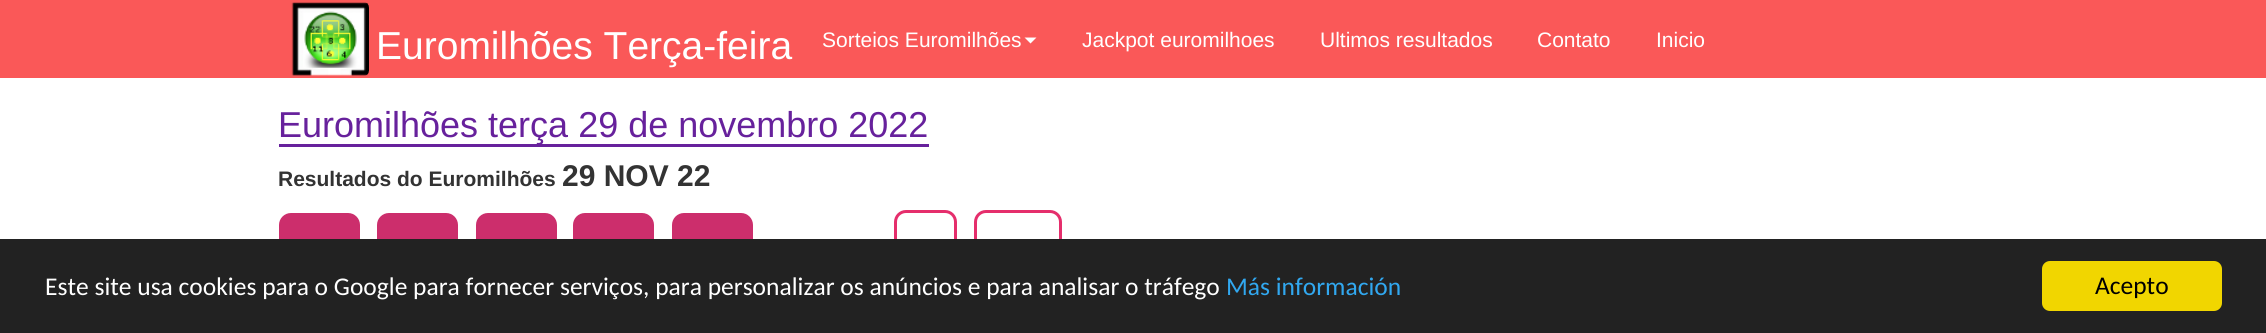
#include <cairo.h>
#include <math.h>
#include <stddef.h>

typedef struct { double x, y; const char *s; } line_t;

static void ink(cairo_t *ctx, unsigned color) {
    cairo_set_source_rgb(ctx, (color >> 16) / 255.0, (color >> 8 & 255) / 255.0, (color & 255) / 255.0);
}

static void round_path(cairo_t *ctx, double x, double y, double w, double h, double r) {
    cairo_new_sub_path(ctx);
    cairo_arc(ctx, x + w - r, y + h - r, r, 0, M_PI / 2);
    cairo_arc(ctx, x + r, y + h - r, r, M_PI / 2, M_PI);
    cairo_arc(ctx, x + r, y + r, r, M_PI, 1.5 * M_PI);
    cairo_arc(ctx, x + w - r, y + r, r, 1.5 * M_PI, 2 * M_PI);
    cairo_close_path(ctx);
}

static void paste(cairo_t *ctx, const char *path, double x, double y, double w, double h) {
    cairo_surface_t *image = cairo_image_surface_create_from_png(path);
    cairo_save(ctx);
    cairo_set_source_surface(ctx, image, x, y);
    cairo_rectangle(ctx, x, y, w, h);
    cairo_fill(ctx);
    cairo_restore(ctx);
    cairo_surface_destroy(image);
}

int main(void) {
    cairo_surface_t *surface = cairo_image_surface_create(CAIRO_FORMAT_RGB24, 2266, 333);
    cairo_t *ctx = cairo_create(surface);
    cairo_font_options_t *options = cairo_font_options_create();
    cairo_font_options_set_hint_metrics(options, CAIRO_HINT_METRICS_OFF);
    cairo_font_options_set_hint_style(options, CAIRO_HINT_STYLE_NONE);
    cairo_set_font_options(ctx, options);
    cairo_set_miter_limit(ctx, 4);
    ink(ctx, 0xFFFFFF);
    cairo_paint(ctx);
    ink(ctx, 0xFA5858);
    cairo_rectangle(ctx, 0, 0, 2266, 78);
    cairo_fill(ctx);
    paste(ctx, "media/1.png", 291, 2, 78, 74);
    cairo_select_font_face(ctx, "Liberation Sans", CAIRO_FONT_SLANT_NORMAL, CAIRO_FONT_WEIGHT_NORMAL);
    cairo_set_font_size(ctx, 39);
    ink(ctx, 0xFFFFFF);
    cairo_move_to(ctx, 376, 59);
    cairo_show_text(ctx, "Euromilhões Terça-feira");
    cairo_set_font_size(ctx, 21);
    cairo_move_to(ctx, 822, 47);
    cairo_show_text(ctx, "Sorteios Euromilhões");
    cairo_new_path(ctx);
    cairo_move_to(ctx, 1024.5, 37.5);
    cairo_line_to(ctx, 1036.5, 37.5);
    cairo_line_to(ctx, 1030.5, 43.5);
    cairo_close_path(ctx);
    cairo_fill(ctx);
    {
        static const line_t items[] = {
            {1082, 47, "Jackpot euromilhoes"},
            {1320, 47, "Ultimos resultados"},
            {1537, 47, "Contato"},
            {1656, 47, "Inicio"},
        };
        for (size_t i = 0; i < sizeof items / sizeof *items; i++) {
            cairo_move_to(ctx, items[i].x, items[i].y);
            cairo_show_text(ctx, items[i].s);
        }
    }
    ink(ctx, 0x67219C);
    cairo_rectangle(ctx, 279, 144, 650, 3);
    cairo_fill(ctx);
    cairo_set_font_size(ctx, 36);
    cairo_move_to(ctx, 278, 137);
    cairo_show_text(ctx, "Euromilhões terça 29 de novembro 2022");
    cairo_select_font_face(ctx, "Liberation Sans", CAIRO_FONT_SLANT_NORMAL, CAIRO_FONT_WEIGHT_BOLD);
    cairo_set_font_size(ctx, 21);
    ink(ctx, 0x333333);
    cairo_move_to(ctx, 278, 186);
    cairo_show_text(ctx, "Resultados do Euromilhões");
    cairo_set_font_size(ctx, 30);
    cairo_move_to(ctx, 562, 186);
    cairo_show_text(ctx, "29 NOV 22");
    ink(ctx, 0xCC2E6C);
    round_path(ctx, 279, 213, 81, 63, 12);
    cairo_fill(ctx);
    round_path(ctx, 377, 213, 81, 63, 12);
    cairo_fill(ctx);
    round_path(ctx, 476, 213, 81, 63, 12);
    cairo_fill(ctx);
    round_path(ctx, 573, 213, 81, 63, 12);
    cairo_fill(ctx);
    round_path(ctx, 672, 213, 81, 63, 12);
    cairo_fill(ctx);
    round_path(ctx, 895.5, 211.5, 60, 66, 10.5);
    ink(ctx, 0xE52E6C);
    cairo_set_line_width(ctx, 3);
    cairo_stroke(ctx);
    round_path(ctx, 975.5, 211.5, 85, 66, 10.5);
    cairo_stroke(ctx);
    ink(ctx, 0x222222);
    cairo_rectangle(ctx, 0, 239, 2266, 94);
    cairo_fill(ctx);
    cairo_select_font_face(ctx, "Carlito", CAIRO_FONT_SLANT_NORMAL, CAIRO_FONT_WEIGHT_NORMAL);
    cairo_set_font_size(ctx, 25.5);
    ink(ctx, 0xFFFFFF);
    cairo_move_to(ctx, 45, 295);
    cairo_show_text(ctx, "Este site usa cookies para o Google para fornecer serviços, para personalizar os anúncios e para analisar o tráfego");
    ink(ctx, 0x31A8F0);
    cairo_move_to(ctx, 1226, 295);
    cairo_show_text(ctx, "Más información");
    ink(ctx, 0xF1D600);
    round_path(ctx, 2042, 261, 180, 50, 8);
    cairo_fill(ctx);
    ink(ctx, 0x000000);
    cairo_move_to(ctx, 2095, 294);
    cairo_show_text(ctx, "Acepto");
    cairo_surface_write_to_png(surface, "image.png");
    cairo_font_options_destroy(options);
    cairo_destroy(ctx);
    cairo_surface_destroy(surface);
    return 0;
}
